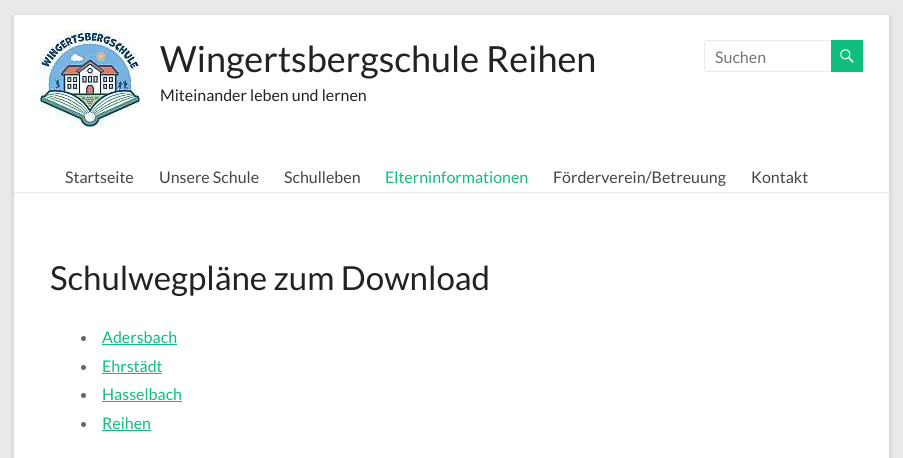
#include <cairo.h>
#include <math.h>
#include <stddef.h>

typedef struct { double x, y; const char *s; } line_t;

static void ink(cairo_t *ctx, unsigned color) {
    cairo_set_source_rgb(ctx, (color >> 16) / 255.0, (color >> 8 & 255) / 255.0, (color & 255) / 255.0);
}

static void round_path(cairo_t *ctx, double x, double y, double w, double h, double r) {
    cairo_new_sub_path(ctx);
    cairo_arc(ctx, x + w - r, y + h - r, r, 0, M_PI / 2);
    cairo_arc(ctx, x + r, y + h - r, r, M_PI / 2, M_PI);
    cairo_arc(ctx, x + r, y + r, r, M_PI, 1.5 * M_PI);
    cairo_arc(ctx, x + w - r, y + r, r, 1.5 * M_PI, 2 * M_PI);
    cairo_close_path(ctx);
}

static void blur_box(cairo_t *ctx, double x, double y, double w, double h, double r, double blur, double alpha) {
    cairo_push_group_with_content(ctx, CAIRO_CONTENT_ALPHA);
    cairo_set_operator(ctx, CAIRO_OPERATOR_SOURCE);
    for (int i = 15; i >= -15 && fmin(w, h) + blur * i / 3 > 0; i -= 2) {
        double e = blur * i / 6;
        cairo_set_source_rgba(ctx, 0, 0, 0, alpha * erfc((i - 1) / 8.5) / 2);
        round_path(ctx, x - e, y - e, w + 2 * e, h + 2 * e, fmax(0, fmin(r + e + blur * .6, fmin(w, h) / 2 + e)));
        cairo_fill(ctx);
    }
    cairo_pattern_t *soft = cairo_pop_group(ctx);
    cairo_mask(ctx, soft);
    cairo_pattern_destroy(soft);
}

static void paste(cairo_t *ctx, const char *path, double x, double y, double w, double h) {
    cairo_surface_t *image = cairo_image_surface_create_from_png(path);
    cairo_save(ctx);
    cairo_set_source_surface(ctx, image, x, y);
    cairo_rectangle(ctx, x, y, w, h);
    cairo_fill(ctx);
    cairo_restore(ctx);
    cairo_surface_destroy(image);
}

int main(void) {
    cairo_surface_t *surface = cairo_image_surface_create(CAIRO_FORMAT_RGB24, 903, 458);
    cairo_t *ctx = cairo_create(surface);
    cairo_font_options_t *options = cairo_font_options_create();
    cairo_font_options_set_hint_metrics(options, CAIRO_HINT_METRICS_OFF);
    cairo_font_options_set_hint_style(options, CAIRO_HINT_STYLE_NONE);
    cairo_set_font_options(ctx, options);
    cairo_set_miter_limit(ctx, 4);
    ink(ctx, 0xEAEAEA);
    cairo_paint(ctx);
    ink(ctx, 0x646464);
    blur_box(ctx, 14, 17, 875, 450, 0, 3, 0.3);
    ink(ctx, 0xFFFFFF);
    cairo_rectangle(ctx, 14, 15, 875, 443);
    cairo_fill(ctx);
    ink(ctx, 0xEAEAEA);
    cairo_rectangle(ctx, 14, 192, 875, 1);
    cairo_fill(ctx);
    paste(ctx, "media/1.png", 40, 30, 100, 97);
    cairo_select_font_face(ctx, "Lato", CAIRO_FONT_SLANT_NORMAL, CAIRO_FONT_WEIGHT_NORMAL);
    cairo_set_font_size(ctx, 36);
    ink(ctx, 0x222222);
    cairo_move_to(ctx, 160, 72);
    cairo_show_text(ctx, "Wingertsbergschule Reihen");
    cairo_set_font_size(ctx, 16);
    cairo_move_to(ctx, 160, 101);
    cairo_show_text(ctx, "Miteinander leben und lernen");
    round_path(ctx, 704.5, 40.5, 129, 31, 2.5);
    ink(ctx, 0xEAEAEA);
    cairo_set_line_width(ctx, 1);
    cairo_stroke(ctx);
    ink(ctx, 0x757575);
    cairo_move_to(ctx, 715, 63);
    cairo_show_text(ctx, "Suchen");
    ink(ctx, 0x0FBE7C);
    cairo_rectangle(ctx, 831, 40, 32, 32);
    cairo_fill(ctx);
    paste(ctx, "media/2.png", 840, 49, 14, 14);
    ink(ctx, 0x444444);
    {
        static const line_t items[] = {
            {65, 183, "Startseite"},
            {159, 183, "Unsere Schule"},
            {284, 183, "Schulleben"},
        };
        for (size_t i = 0; i < sizeof items / sizeof *items; i++) {
            cairo_move_to(ctx, items[i].x, items[i].y);
            cairo_show_text(ctx, items[i].s);
        }
    }
    ink(ctx, 0x0FBE7C);
    cairo_move_to(ctx, 385, 183);
    cairo_show_text(ctx, "Elterninformationen");
    ink(ctx, 0x444444);
    cairo_move_to(ctx, 553, 183);
    cairo_show_text(ctx, "Förderverein/Betreuung");
    cairo_move_to(ctx, 751, 183);
    cairo_show_text(ctx, "Kontakt");
    cairo_set_font_size(ctx, 33.1);
    ink(ctx, 0x222222);
    cairo_move_to(ctx, 50, 290);
    cairo_show_text(ctx, "Schulwegpläne zum Download");
    ink(ctx, 0x666666);
    cairo_new_path(ctx);
    cairo_arc(ctx, 83.5, 338.5, 2.5, 0, 2 * M_PI);
    cairo_fill(ctx);
    cairo_set_font_size(ctx, 16);
    ink(ctx, 0x0FBE7C);
    cairo_move_to(ctx, 102, 343);
    cairo_show_text(ctx, "Adersbach");
    cairo_rectangle(ctx, 102, 344, 75, 1);
    cairo_fill(ctx);
    ink(ctx, 0x666666);
    cairo_arc(ctx, 83.5, 367.5, 2.5, 0, 2 * M_PI);
    cairo_fill(ctx);
    ink(ctx, 0x0FBE7C);
    cairo_move_to(ctx, 102, 372);
    cairo_show_text(ctx, "Ehrstädt");
    cairo_rectangle(ctx, 102, 373, 60, 1);
    cairo_fill(ctx);
    ink(ctx, 0x666666);
    cairo_arc(ctx, 83.5, 395.5, 2.5, 0, 2 * M_PI);
    cairo_fill(ctx);
    ink(ctx, 0x0FBE7C);
    cairo_move_to(ctx, 102, 400);
    cairo_show_text(ctx, "Hasselbach");
    cairo_rectangle(ctx, 102, 401, 80, 1);
    cairo_fill(ctx);
    ink(ctx, 0x666666);
    cairo_arc(ctx, 83.5, 424.5, 2.5, 0, 2 * M_PI);
    cairo_fill(ctx);
    ink(ctx, 0x0FBE7C);
    cairo_move_to(ctx, 102, 429);
    cairo_show_text(ctx, "Reihen");
    cairo_rectangle(ctx, 102, 430, 49, 1);
    cairo_fill(ctx);
    cairo_surface_write_to_png(surface, "image.png");
    cairo_font_options_destroy(options);
    cairo_destroy(ctx);
    cairo_surface_destroy(surface);
    return 0;
}
